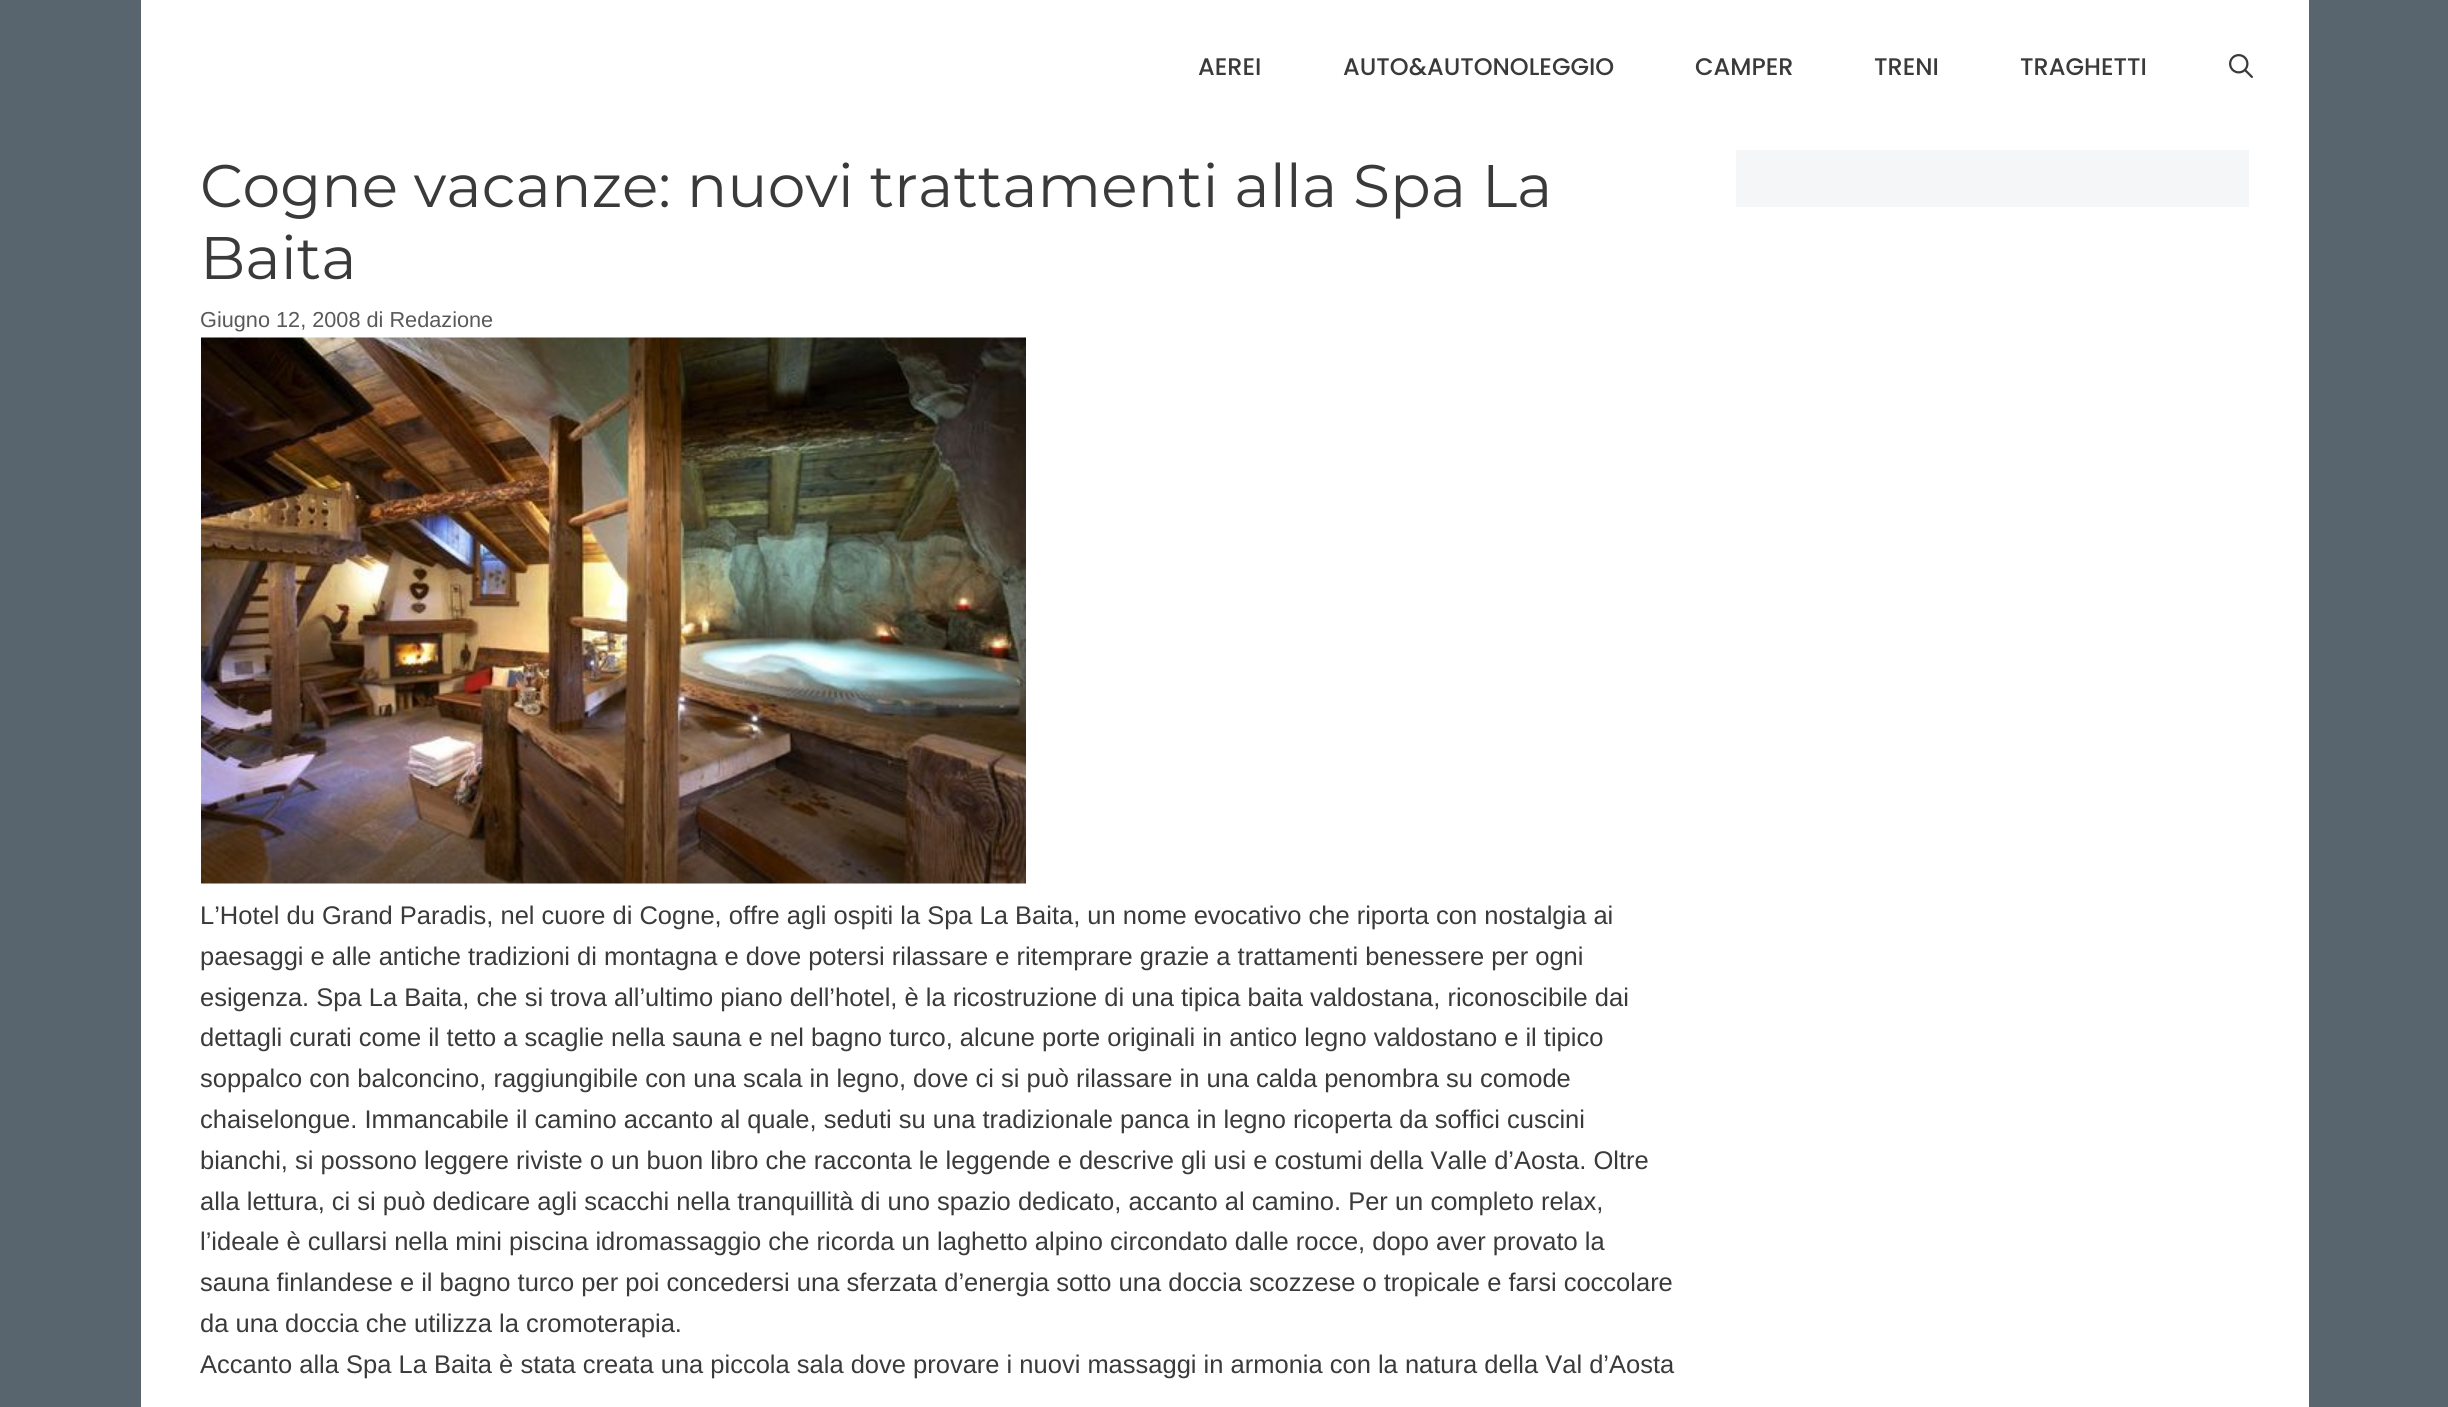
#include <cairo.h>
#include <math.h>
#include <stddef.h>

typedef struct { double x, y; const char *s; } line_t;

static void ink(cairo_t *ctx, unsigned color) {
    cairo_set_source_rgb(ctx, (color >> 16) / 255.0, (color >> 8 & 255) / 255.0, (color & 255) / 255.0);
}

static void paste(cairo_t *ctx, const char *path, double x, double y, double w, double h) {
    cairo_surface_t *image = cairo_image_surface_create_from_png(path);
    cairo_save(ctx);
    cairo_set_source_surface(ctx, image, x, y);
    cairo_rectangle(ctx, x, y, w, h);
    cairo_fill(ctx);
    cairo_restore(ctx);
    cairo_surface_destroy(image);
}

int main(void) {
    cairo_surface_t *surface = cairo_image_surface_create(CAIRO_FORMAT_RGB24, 2448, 1407);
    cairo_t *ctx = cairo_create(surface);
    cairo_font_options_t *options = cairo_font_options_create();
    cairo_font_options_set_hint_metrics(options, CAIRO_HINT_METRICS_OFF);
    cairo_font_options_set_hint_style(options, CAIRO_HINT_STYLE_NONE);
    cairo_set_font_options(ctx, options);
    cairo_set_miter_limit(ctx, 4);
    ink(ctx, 0x58656F);
    cairo_paint(ctx);
    ink(ctx, 0xFFFFFF);
    cairo_rectangle(ctx, 141, 0, 2168, 1407);
    cairo_fill(ctx);
    cairo_select_font_face(ctx, "Poppins Medium", CAIRO_FONT_SLANT_NORMAL, CAIRO_FONT_WEIGHT_NORMAL);
    cairo_set_font_size(ctx, 24);
    ink(ctx, 0x3A3A3A);
    {
        static const line_t items[] = {
            {1198, 75, "AEREI"},
            {1343, 75, "AUTO&AUTONOLEGGIO"},
            {1695, 75, "CAMPER"},
            {1874, 75, "TRENI"},
            {2020, 75, "TRAGHETTI"},
        };
        for (size_t i = 0; i < sizeof items / sizeof *items; i++) {
            cairo_move_to(ctx, items[i].x, items[i].y);
            cairo_show_text(ctx, items[i].s);
        }
    }
    paste(ctx, "media/1.png", 2229, 54, 24, 24);
    cairo_select_font_face(ctx, "Montserrat", CAIRO_FONT_SLANT_NORMAL, CAIRO_FONT_WEIGHT_NORMAL);
    cairo_set_font_size(ctx, 60);
    cairo_move_to(ctx, 200, 207);
    cairo_show_text(ctx, "Cogne vacanze: nuovi trattamenti alla Spa La");
    cairo_move_to(ctx, 200, 279);
    cairo_show_text(ctx, "Baita");
    cairo_select_font_face(ctx, "Liberation Sans", CAIRO_FONT_SLANT_NORMAL, CAIRO_FONT_WEIGHT_NORMAL);
    cairo_set_font_size(ctx, 21.7);
    ink(ctx, 0x595959);
    cairo_move_to(ctx, 200, 327);
    cairo_show_text(ctx, "Giugno 12, 2008 di Redazione");
    paste(ctx, "media/2.png", 201, 337, 825, 547);
    cairo_set_font_size(ctx, 25.5);
    ink(ctx, 0x3A3A3A);
    {
        static const line_t items[] = {
            {200, 924, "L’Hotel du Grand Paradis, nel cuore di Cogne, offre agli ospiti la Spa La Baita, un nome evocativo che riporta con nostalgia ai"},
            {200, 965, "paesaggi e alle antiche tradizioni di montagna e dove potersi rilassare e ritemprare grazie a trattamenti benessere per ogni"},
            {200, 1006, "esigenza. Spa La Baita, che si trova all’ultimo piano dell’hotel, è la ricostruzione di una tipica baita valdostana, riconoscibile dai"},
            {200, 1046, "dettagli curati come il tetto a scaglie nella sauna e nel bagno turco, alcune porte originali in antico legno valdostano e il tipico"},
            {200, 1087, "soppalco con balconcino, raggiungibile con una scala in legno, dove ci si può rilassare in una calda penombra su comode"},
            {200, 1128, "chaiselongue. Immancabile il camino accanto al quale, seduti su una tradizionale panca in legno ricoperta da soffici cuscini"},
            {200, 1169, "bianchi, si possono leggere riviste o un buon libro che racconta le leggende e descrive gli usi e costumi della Valle d’Aosta. Oltre"},
            {200, 1210, "alla lettura, ci si può dedicare agli scacchi nella tranquillità di uno spazio dedicato, accanto al camino. Per un completo relax,"},
            {200, 1250, "l’ideale è cullarsi nella mini piscina idromassaggio che ricorda un laghetto alpino circondato dalle rocce, dopo aver provato la"},
            {200, 1291, "sauna finlandese e il bagno turco per poi concedersi una sferzata d’energia sotto una doccia scozzese o tropicale e farsi coccolare"},
            {200, 1332, "da una doccia che utilizza la cromoterapia."},
            {200, 1373, "Accanto alla Spa La Baita è stata creata una piccola sala dove provare i nuovi massaggi in armonia con la natura della Val d’Aosta"},
        };
        for (size_t i = 0; i < sizeof items / sizeof *items; i++) {
            cairo_move_to(ctx, items[i].x, items[i].y);
            cairo_show_text(ctx, items[i].s);
        }
    }
    ink(ctx, 0xF4F6F7);
    cairo_rectangle(ctx, 1736, 150, 513, 57);
    cairo_fill(ctx);
    cairo_surface_write_to_png(surface, "image.png");
    cairo_font_options_destroy(options);
    cairo_destroy(ctx);
    cairo_surface_destroy(surface);
    return 0;
}
